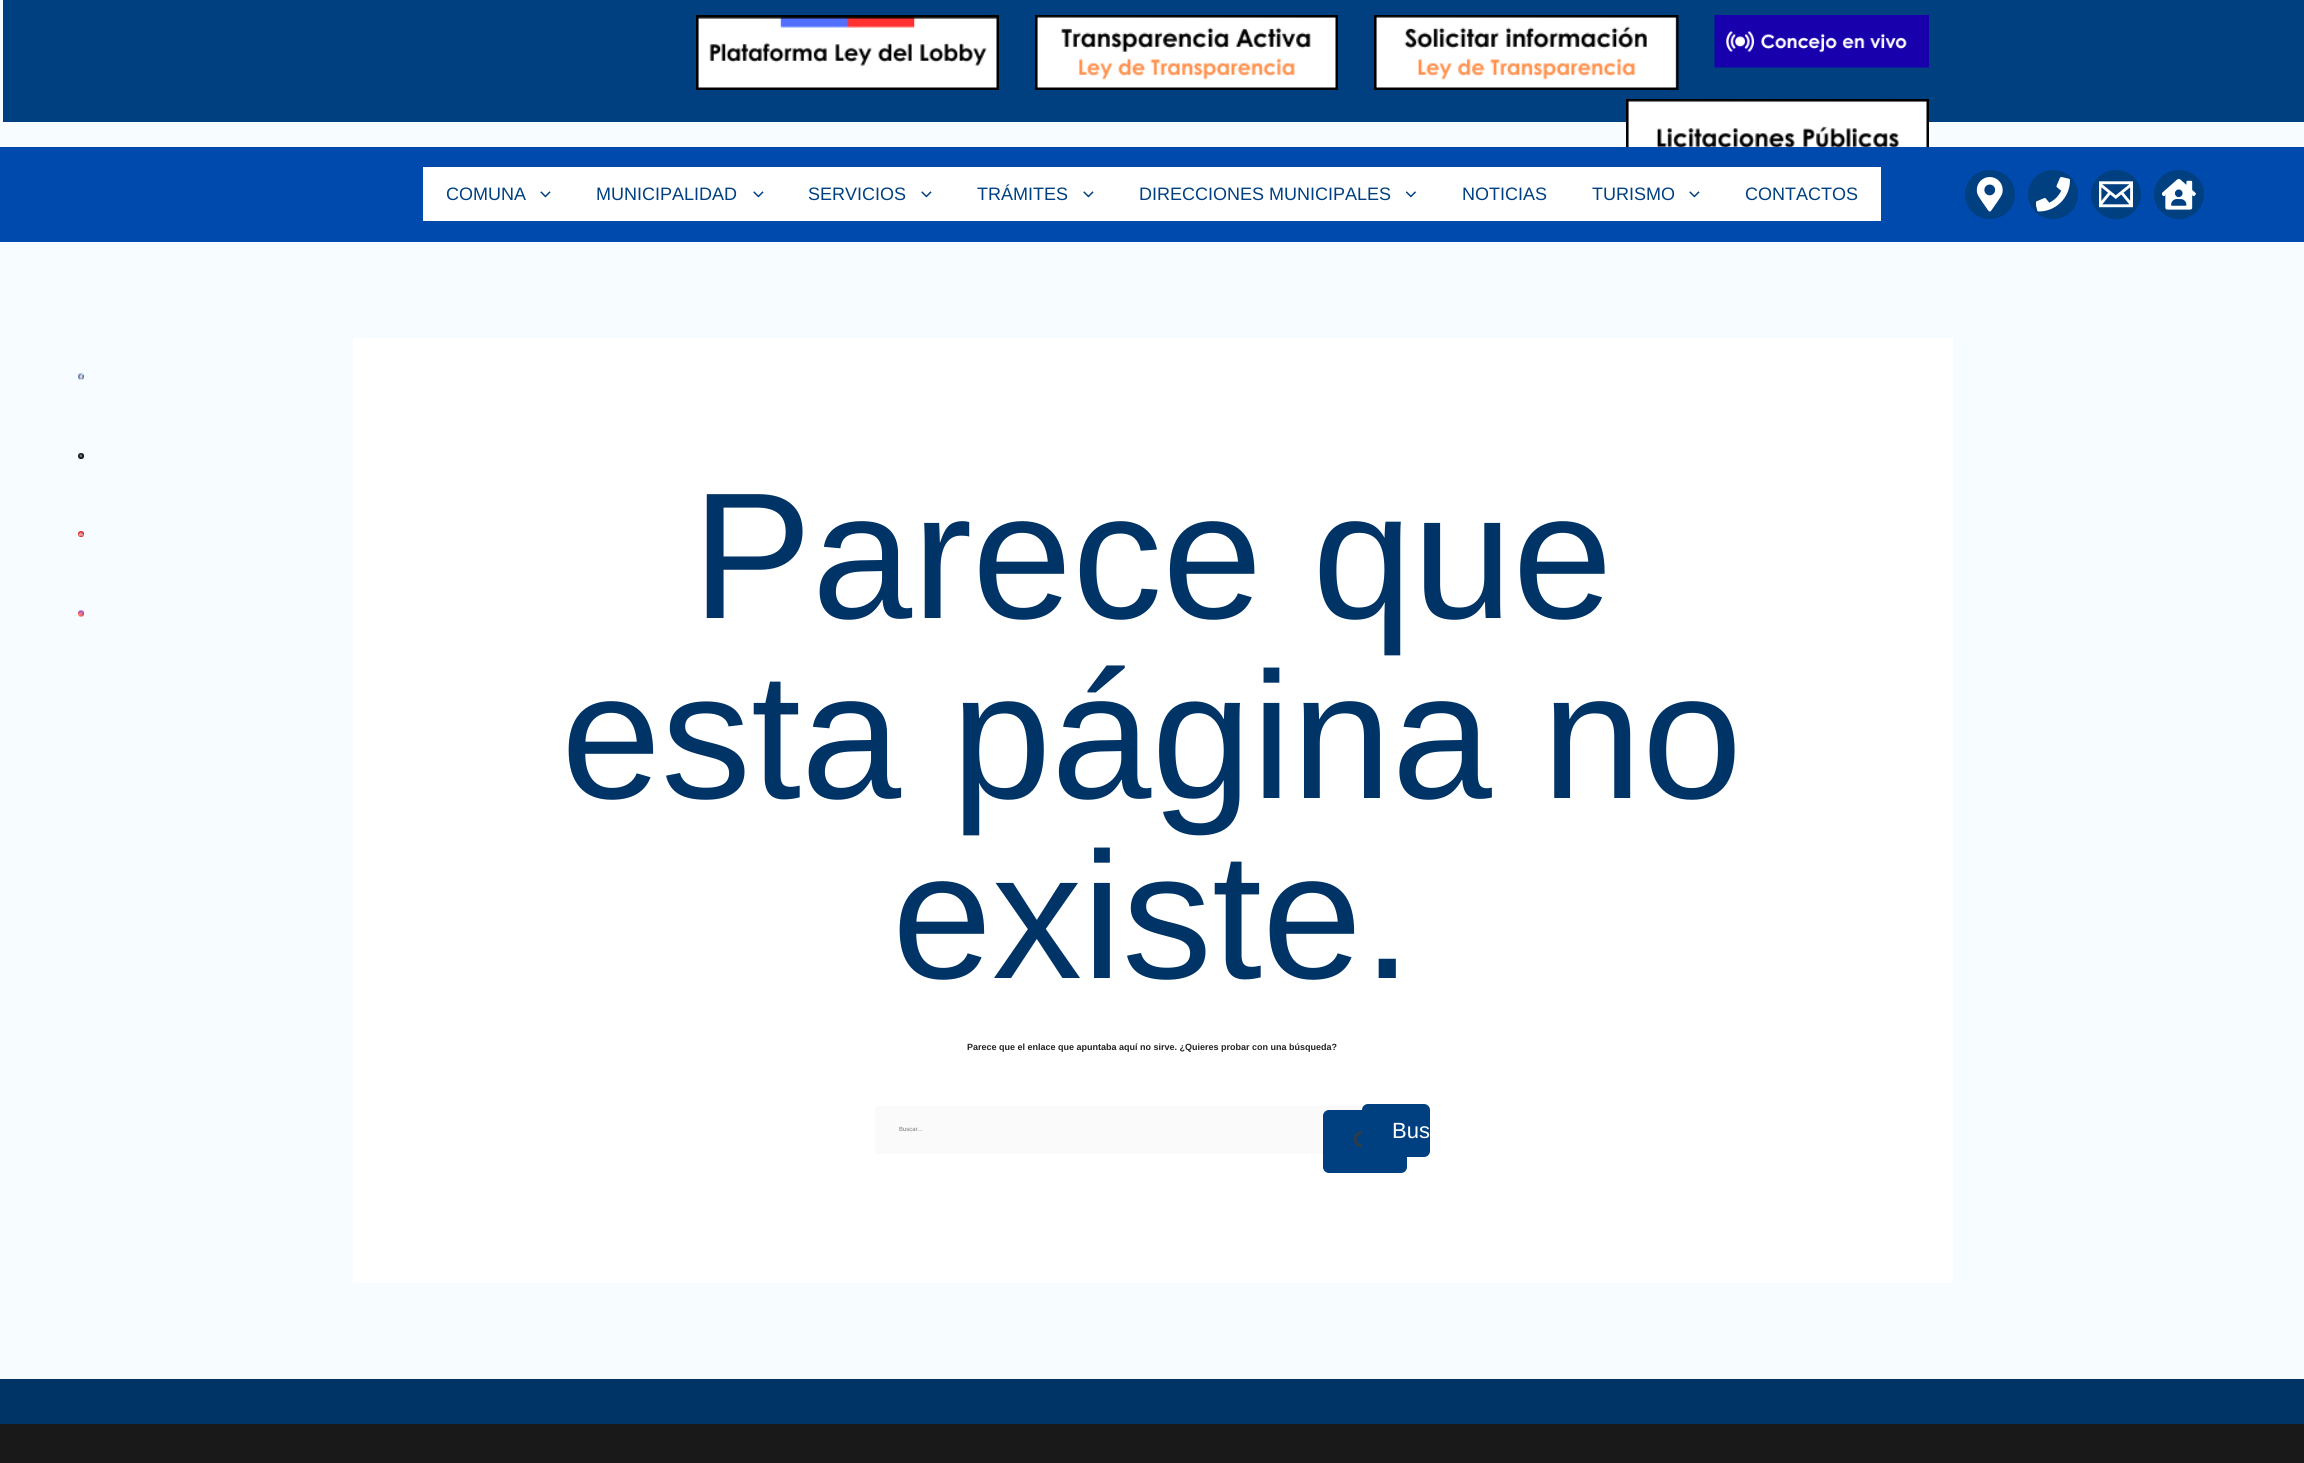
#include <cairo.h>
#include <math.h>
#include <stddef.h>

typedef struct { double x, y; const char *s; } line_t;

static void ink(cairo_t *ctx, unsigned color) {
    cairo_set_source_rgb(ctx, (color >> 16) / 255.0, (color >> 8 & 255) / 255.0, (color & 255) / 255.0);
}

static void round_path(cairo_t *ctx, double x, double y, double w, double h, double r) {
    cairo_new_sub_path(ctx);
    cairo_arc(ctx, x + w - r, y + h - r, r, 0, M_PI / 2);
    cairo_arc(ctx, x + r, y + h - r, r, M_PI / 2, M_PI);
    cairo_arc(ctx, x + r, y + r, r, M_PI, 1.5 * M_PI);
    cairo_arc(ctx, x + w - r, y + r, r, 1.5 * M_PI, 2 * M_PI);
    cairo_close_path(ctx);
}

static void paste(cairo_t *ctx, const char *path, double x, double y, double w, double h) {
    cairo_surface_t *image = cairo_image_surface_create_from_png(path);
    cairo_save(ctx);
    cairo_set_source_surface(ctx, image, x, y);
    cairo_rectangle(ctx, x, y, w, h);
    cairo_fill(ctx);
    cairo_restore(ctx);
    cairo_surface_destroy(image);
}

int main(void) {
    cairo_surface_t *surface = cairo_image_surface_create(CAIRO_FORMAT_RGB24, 2304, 1463);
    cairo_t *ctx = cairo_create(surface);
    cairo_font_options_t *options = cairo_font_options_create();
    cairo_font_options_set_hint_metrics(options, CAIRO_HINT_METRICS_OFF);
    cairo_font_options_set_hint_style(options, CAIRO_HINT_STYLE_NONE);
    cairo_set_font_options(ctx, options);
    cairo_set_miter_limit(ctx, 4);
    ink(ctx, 0xF6FCFF);
    cairo_paint(ctx);
    paste(ctx, "media/1.png", 78, 373, 6, 7);
    paste(ctx, "media/2.png", 78, 453, 6, 6);
    paste(ctx, "media/3.png", 78, 531, 6, 6);
    paste(ctx, "media/4.png", 78, 610, 6, 7);
    ink(ctx, 0x004080);
    cairo_rectangle(ctx, 3, 0, 2301, 122);
    cairo_fill(ctx);
    paste(ctx, "media/5.png", 696, 15, 303, 75);
    paste(ctx, "media/6.png", 1035, 15, 303, 75);
    paste(ctx, "media/7.png", 1374, 15, 305, 75);
    paste(ctx, "media/8.png", 1714, 15, 215, 53);
    paste(ctx, "media/9.png", 1626, 99, 303, 48);
    ink(ctx, 0x004AAD);
    cairo_rectangle(ctx, 0, 147, 2304, 95);
    cairo_fill(ctx);
    ink(ctx, 0xFFFFFF);
    cairo_rectangle(ctx, 423, 167, 1458, 54);
    cairo_fill(ctx);
    cairo_select_font_face(ctx, "Liberation Sans", CAIRO_FONT_SLANT_NORMAL, CAIRO_FONT_WEIGHT_NORMAL);
    cairo_set_font_size(ctx, 18);
    ink(ctx, 0x004080);
    cairo_move_to(ctx, 446, 200);
    cairo_show_text(ctx, "COMUNA");
    paste(ctx, "media/10.png", 540, 191, 11, 7);
    cairo_move_to(ctx, 596, 200);
    cairo_show_text(ctx, "MUNICIPALIDAD");
    paste(ctx, "media/10.png", 753, 191, 11, 7);
    cairo_move_to(ctx, 808, 200);
    cairo_show_text(ctx, "SERVICIOS");
    paste(ctx, "media/10.png", 921, 191, 11, 7);
    cairo_move_to(ctx, 977, 200);
    cairo_show_text(ctx, "TRÁMITES");
    paste(ctx, "media/10.png", 1083, 191, 11, 7);
    cairo_move_to(ctx, 1139, 200);
    cairo_show_text(ctx, "DIRECCIONES MUNICIPALES");
    paste(ctx, "media/11.png", 1406, 191, 10, 7);
    cairo_move_to(ctx, 1462, 200);
    cairo_show_text(ctx, "NOTICIAS");
    cairo_move_to(ctx, 1592, 200);
    cairo_show_text(ctx, "TURISMO");
    paste(ctx, "media/10.png", 1689, 191, 11, 7);
    cairo_move_to(ctx, 1745, 200);
    cairo_show_text(ctx, "CONTACTOS");
    round_path(ctx, 1965, 170, 50, 49, 24.5);
    cairo_fill(ctx);
    paste(ctx, "media/12.png", 1976, 177, 27, 35);
    round_path(ctx, 2028, 170, 50, 49, 24.5);
    cairo_fill(ctx);
    paste(ctx, "media/13.png", 2036, 177, 34, 35);
    round_path(ctx, 2091, 170, 50, 49, 24.5);
    cairo_fill(ctx);
    paste(ctx, "media/14.png", 2099, 181, 34, 27);
    round_path(ctx, 2154, 170, 50, 49, 24.5);
    cairo_fill(ctx);
    paste(ctx, "media/15.png", 2162, 178, 34, 32);
    ink(ctx, 0xFFFFFF);
    cairo_rectangle(ctx, 353, 338, 1600, 945);
    cairo_fill(ctx);
    cairo_set_font_size(ctx, 180);
    ink(ctx, 0x003366);
    {
        static const line_t items[] = {
            {692, 618, "Parece que"},
            {561, 798, "esta página no"},
            {892, 978, "existe."},
        };
        for (size_t i = 0; i < sizeof items / sizeof *items; i++) {
            cairo_move_to(ctx, items[i].x, items[i].y);
            cairo_show_text(ctx, items[i].s);
        }
    }
    cairo_select_font_face(ctx, "Liberation Sans", CAIRO_FONT_SLANT_NORMAL, CAIRO_FONT_WEIGHT_BOLD);
    cairo_set_font_size(ctx, 9);
    ink(ctx, 0x222222);
    cairo_move_to(ctx, 967, 1050);
    cairo_show_text(ctx, "Parece que el enlace que apuntaba aquí no sirve. ¿Quieres probar con una búsqueda?");
    ink(ctx, 0xFAFAFA);
    round_path(ctx, 875, 1106, 555, 48, 3);
    cairo_fill(ctx);
    cairo_select_font_face(ctx, "Liberation Sans", CAIRO_FONT_SLANT_NORMAL, CAIRO_FONT_WEIGHT_NORMAL);
    cairo_set_font_size(ctx, 6);
    ink(ctx, 0x757575);
    cairo_move_to(ctx, 899, 1131);
    cairo_show_text(ctx, "Buscar...");
    ink(ctx, 0x004080);
    round_path(ctx, 1323, 1110, 84, 63, 6);
    cairo_fill(ctx);
    paste(ctx, "media/16.png", 1354, 1131, 8, 16);
    round_path(ctx, 1362, 1104, 68, 53, 6);
    cairo_fill(ctx);
    cairo_set_font_size(ctx, 22);
    ink(ctx, 0xFFFFFF);
    cairo_move_to(ctx, 1392, 1138);
    cairo_show_text(ctx, "Bus");
    ink(ctx, 0x003366);
    cairo_rectangle(ctx, 0, 1379, 2304, 45);
    cairo_fill(ctx);
    ink(ctx, 0x191919);
    cairo_rectangle(ctx, 0, 1424, 2304, 39);
    cairo_fill(ctx);
    cairo_surface_write_to_png(surface, "image.png");
    cairo_font_options_destroy(options);
    cairo_destroy(ctx);
    cairo_surface_destroy(surface);
    return 0;
}
